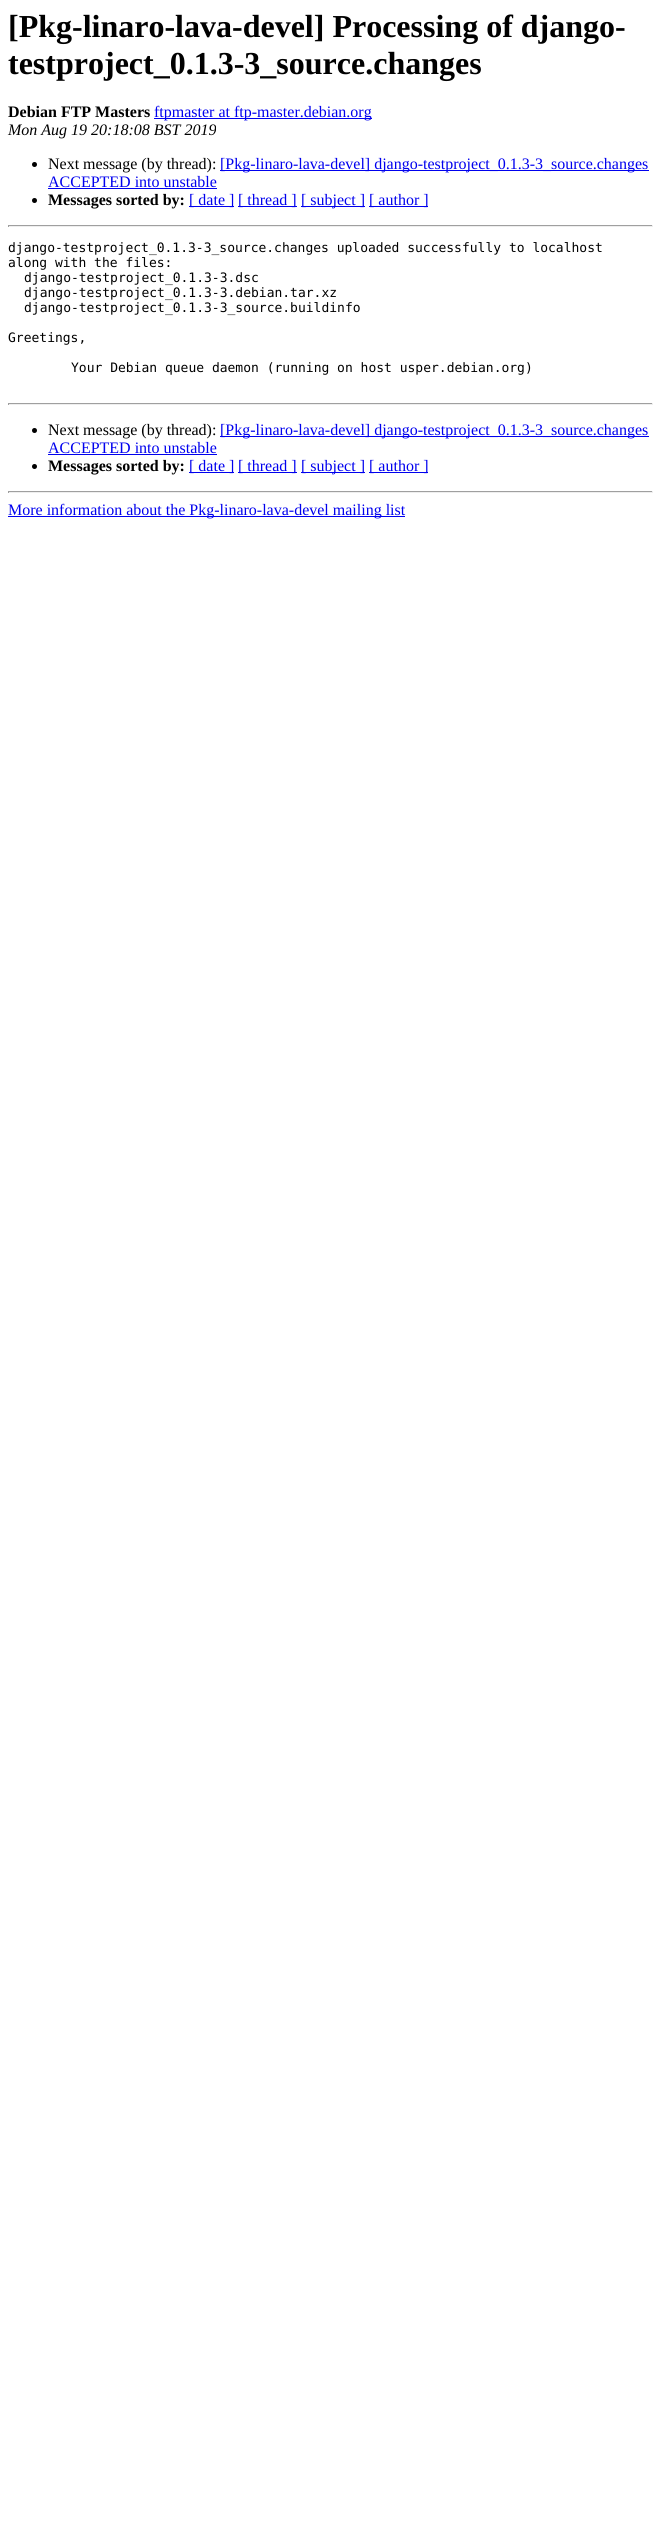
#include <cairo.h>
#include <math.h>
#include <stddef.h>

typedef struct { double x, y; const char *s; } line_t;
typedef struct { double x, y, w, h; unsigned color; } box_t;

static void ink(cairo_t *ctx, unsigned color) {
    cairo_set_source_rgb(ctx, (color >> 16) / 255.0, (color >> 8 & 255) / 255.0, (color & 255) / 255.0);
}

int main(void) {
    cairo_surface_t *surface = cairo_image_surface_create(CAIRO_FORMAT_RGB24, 661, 2523);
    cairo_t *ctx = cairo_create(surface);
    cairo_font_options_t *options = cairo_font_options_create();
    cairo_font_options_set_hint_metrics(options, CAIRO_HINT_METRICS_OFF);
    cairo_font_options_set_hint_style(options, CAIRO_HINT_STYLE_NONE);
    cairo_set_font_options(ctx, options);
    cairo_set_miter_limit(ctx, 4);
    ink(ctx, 0xFFFFFF);
    cairo_paint(ctx);
    cairo_select_font_face(ctx, "Liberation Serif", CAIRO_FONT_SLANT_NORMAL, CAIRO_FONT_WEIGHT_BOLD);
    cairo_set_font_size(ctx, 32);
    ink(ctx, 0x000000);
    cairo_move_to(ctx, 8, 37);
    cairo_show_text(ctx, "[Pkg-linaro-lava-devel] Processing of django-");
    cairo_move_to(ctx, 8, 74);
    cairo_show_text(ctx, "testproject_0.1.3-3_source.changes");
    cairo_set_font_size(ctx, 16);
    cairo_move_to(ctx, 8, 117);
    cairo_show_text(ctx, "Debian FTP Masters");
    ink(ctx, 0x0000EE);
    cairo_rectangle(ctx, 154, 118, 218, 1);
    cairo_fill(ctx);
    cairo_select_font_face(ctx, "Liberation Serif", CAIRO_FONT_SLANT_NORMAL, CAIRO_FONT_WEIGHT_NORMAL);
    cairo_move_to(ctx, 154, 117);
    cairo_show_text(ctx, "ftpmaster at ftp-master.debian.org");
    cairo_select_font_face(ctx, "Liberation Serif", CAIRO_FONT_SLANT_ITALIC, CAIRO_FONT_WEIGHT_NORMAL);
    ink(ctx, 0x000000);
    cairo_move_to(ctx, 8, 135);
    cairo_show_text(ctx, "Mon Aug 19 20:18:08 BST 2019");
    cairo_new_path(ctx);
    cairo_arc(ctx, 34.5, 164.5, 2.5, 0, 2 * M_PI);
    cairo_fill(ctx);
    cairo_select_font_face(ctx, "Liberation Serif", CAIRO_FONT_SLANT_NORMAL, CAIRO_FONT_WEIGHT_NORMAL);
    cairo_move_to(ctx, 48, 169);
    cairo_show_text(ctx, "Next message (by thread):");
    ink(ctx, 0x0000EE);
    cairo_rectangle(ctx, 220, 170, 429, 1);
    cairo_fill(ctx);
    cairo_move_to(ctx, 220, 169);
    cairo_show_text(ctx, "[Pkg-linaro-lava-devel] django-testproject_0.1.3-3_source.changes");
    cairo_move_to(ctx, 48, 187);
    cairo_show_text(ctx, "ACCEPTED into unstable");
    cairo_rectangle(ctx, 48, 188, 169, 1);
    cairo_fill(ctx);
    ink(ctx, 0x000000);
    cairo_arc(ctx, 34.5, 200.5, 2.5, 0, 2 * M_PI);
    cairo_fill(ctx);
    cairo_select_font_face(ctx, "Liberation Serif", CAIRO_FONT_SLANT_NORMAL, CAIRO_FONT_WEIGHT_BOLD);
    cairo_move_to(ctx, 48, 205);
    cairo_show_text(ctx, "Messages sorted by:");
    ink(ctx, 0x0000EE);
    cairo_rectangle(ctx, 189, 206, 45, 1);
    cairo_fill(ctx);
    cairo_select_font_face(ctx, "Liberation Serif", CAIRO_FONT_SLANT_NORMAL, CAIRO_FONT_WEIGHT_NORMAL);
    cairo_move_to(ctx, 189, 205);
    cairo_show_text(ctx, "[ date ]");
    cairo_rectangle(ctx, 238, 206, 59, 1);
    cairo_fill(ctx);
    cairo_move_to(ctx, 238, 205);
    cairo_show_text(ctx, "[ thread ]");
    cairo_rectangle(ctx, 301, 206, 64, 1);
    cairo_fill(ctx);
    cairo_move_to(ctx, 301, 205);
    cairo_show_text(ctx, "[ subject ]");
    cairo_rectangle(ctx, 369, 206, 59, 1);
    cairo_fill(ctx);
    cairo_move_to(ctx, 369, 205);
    cairo_show_text(ctx, "[ author ]");
    {
        static const box_t items[] = {
            {8, 225, 645, 1, 0x9F9F9F},
            {652, 225, 1, 2, 0xEEEEEE},
            {8, 226, 645, 1, 0xEEEEEE},
            {8, 225, 1, 2, 0x9F9F9F},
        };
        for (size_t i = 0; i < sizeof items / sizeof *items; i++) {
            ink(ctx, items[i].color);
            cairo_rectangle(ctx, items[i].x, items[i].y, items[i].w, items[i].h);
            cairo_fill(ctx);
        }
    }
    cairo_select_font_face(ctx, "DejaVu Sans Mono", CAIRO_FONT_SLANT_NORMAL, CAIRO_FONT_WEIGHT_NORMAL);
    cairo_set_font_size(ctx, 13);
    ink(ctx, 0x000000);
    {
        static const line_t items[] = {
            {8, 252, "django-testproject_0.1.3-3_source.changes uploaded successfully to localhost"},
            {8, 267, "along with the files:"},
            {24, 282, "django-testproject_0.1.3-3.dsc"},
            {24, 297, "django-testproject_0.1.3-3.debian.tar.xz"},
            {24, 312, "django-testproject_0.1.3-3_source.buildinfo"},
            {8, 342, "Greetings,"},
            {71, 372, "Your Debian queue daemon (running on host usper.debian.org)"},
        };
        for (size_t i = 0; i < sizeof items / sizeof *items; i++) {
            cairo_move_to(ctx, items[i].x, items[i].y);
            cairo_show_text(ctx, items[i].s);
        }
    }
    {
        static const box_t items[] = {
            {8, 403, 645, 1, 0x9F9F9F},
            {652, 403, 1, 2, 0xEEEEEE},
            {8, 404, 645, 1, 0xEEEEEE},
            {8, 403, 1, 2, 0x9F9F9F},
        };
        for (size_t i = 0; i < sizeof items / sizeof *items; i++) {
            ink(ctx, items[i].color);
            cairo_rectangle(ctx, items[i].x, items[i].y, items[i].w, items[i].h);
            cairo_fill(ctx);
        }
    }
    ink(ctx, 0x000000);
    cairo_new_path(ctx);
    cairo_arc(ctx, 34.5, 430.5, 2.5, 0, 2 * M_PI);
    cairo_fill(ctx);
    cairo_select_font_face(ctx, "Liberation Serif", CAIRO_FONT_SLANT_NORMAL, CAIRO_FONT_WEIGHT_NORMAL);
    cairo_set_font_size(ctx, 16);
    cairo_move_to(ctx, 48, 435);
    cairo_show_text(ctx, "Next message (by thread):");
    ink(ctx, 0x0000EE);
    cairo_rectangle(ctx, 220, 436, 429, 1);
    cairo_fill(ctx);
    cairo_move_to(ctx, 220, 435);
    cairo_show_text(ctx, "[Pkg-linaro-lava-devel] django-testproject_0.1.3-3_source.changes");
    cairo_move_to(ctx, 48, 453);
    cairo_show_text(ctx, "ACCEPTED into unstable");
    cairo_rectangle(ctx, 48, 454, 169, 1);
    cairo_fill(ctx);
    ink(ctx, 0x000000);
    cairo_arc(ctx, 34.5, 466.5, 2.5, 0, 2 * M_PI);
    cairo_fill(ctx);
    cairo_select_font_face(ctx, "Liberation Serif", CAIRO_FONT_SLANT_NORMAL, CAIRO_FONT_WEIGHT_BOLD);
    cairo_move_to(ctx, 48, 471);
    cairo_show_text(ctx, "Messages sorted by:");
    ink(ctx, 0x0000EE);
    cairo_rectangle(ctx, 189, 472, 45, 1);
    cairo_fill(ctx);
    cairo_select_font_face(ctx, "Liberation Serif", CAIRO_FONT_SLANT_NORMAL, CAIRO_FONT_WEIGHT_NORMAL);
    cairo_move_to(ctx, 189, 471);
    cairo_show_text(ctx, "[ date ]");
    cairo_rectangle(ctx, 238, 472, 59, 1);
    cairo_fill(ctx);
    cairo_move_to(ctx, 238, 471);
    cairo_show_text(ctx, "[ thread ]");
    cairo_rectangle(ctx, 301, 472, 64, 1);
    cairo_fill(ctx);
    cairo_move_to(ctx, 301, 471);
    cairo_show_text(ctx, "[ subject ]");
    cairo_rectangle(ctx, 369, 472, 59, 1);
    cairo_fill(ctx);
    cairo_move_to(ctx, 369, 471);
    cairo_show_text(ctx, "[ author ]");
    {
        static const box_t items[] = {
            {8, 491, 645, 1, 0x9F9F9F},
            {652, 491, 1, 2, 0xEEEEEE},
            {8, 492, 645, 1, 0xEEEEEE},
            {8, 491, 1, 2, 0x9F9F9F},
            {8, 516, 397, 1, 0x0000EE},
        };
        for (size_t i = 0; i < sizeof items / sizeof *items; i++) {
            ink(ctx, items[i].color);
            cairo_rectangle(ctx, items[i].x, items[i].y, items[i].w, items[i].h);
            cairo_fill(ctx);
        }
    }
    cairo_move_to(ctx, 8, 515);
    cairo_show_text(ctx, "More information about the Pkg-linaro-lava-devel mailing list");
    cairo_surface_write_to_png(surface, "image.png");
    cairo_font_options_destroy(options);
    cairo_destroy(ctx);
    cairo_surface_destroy(surface);
    return 0;
}
